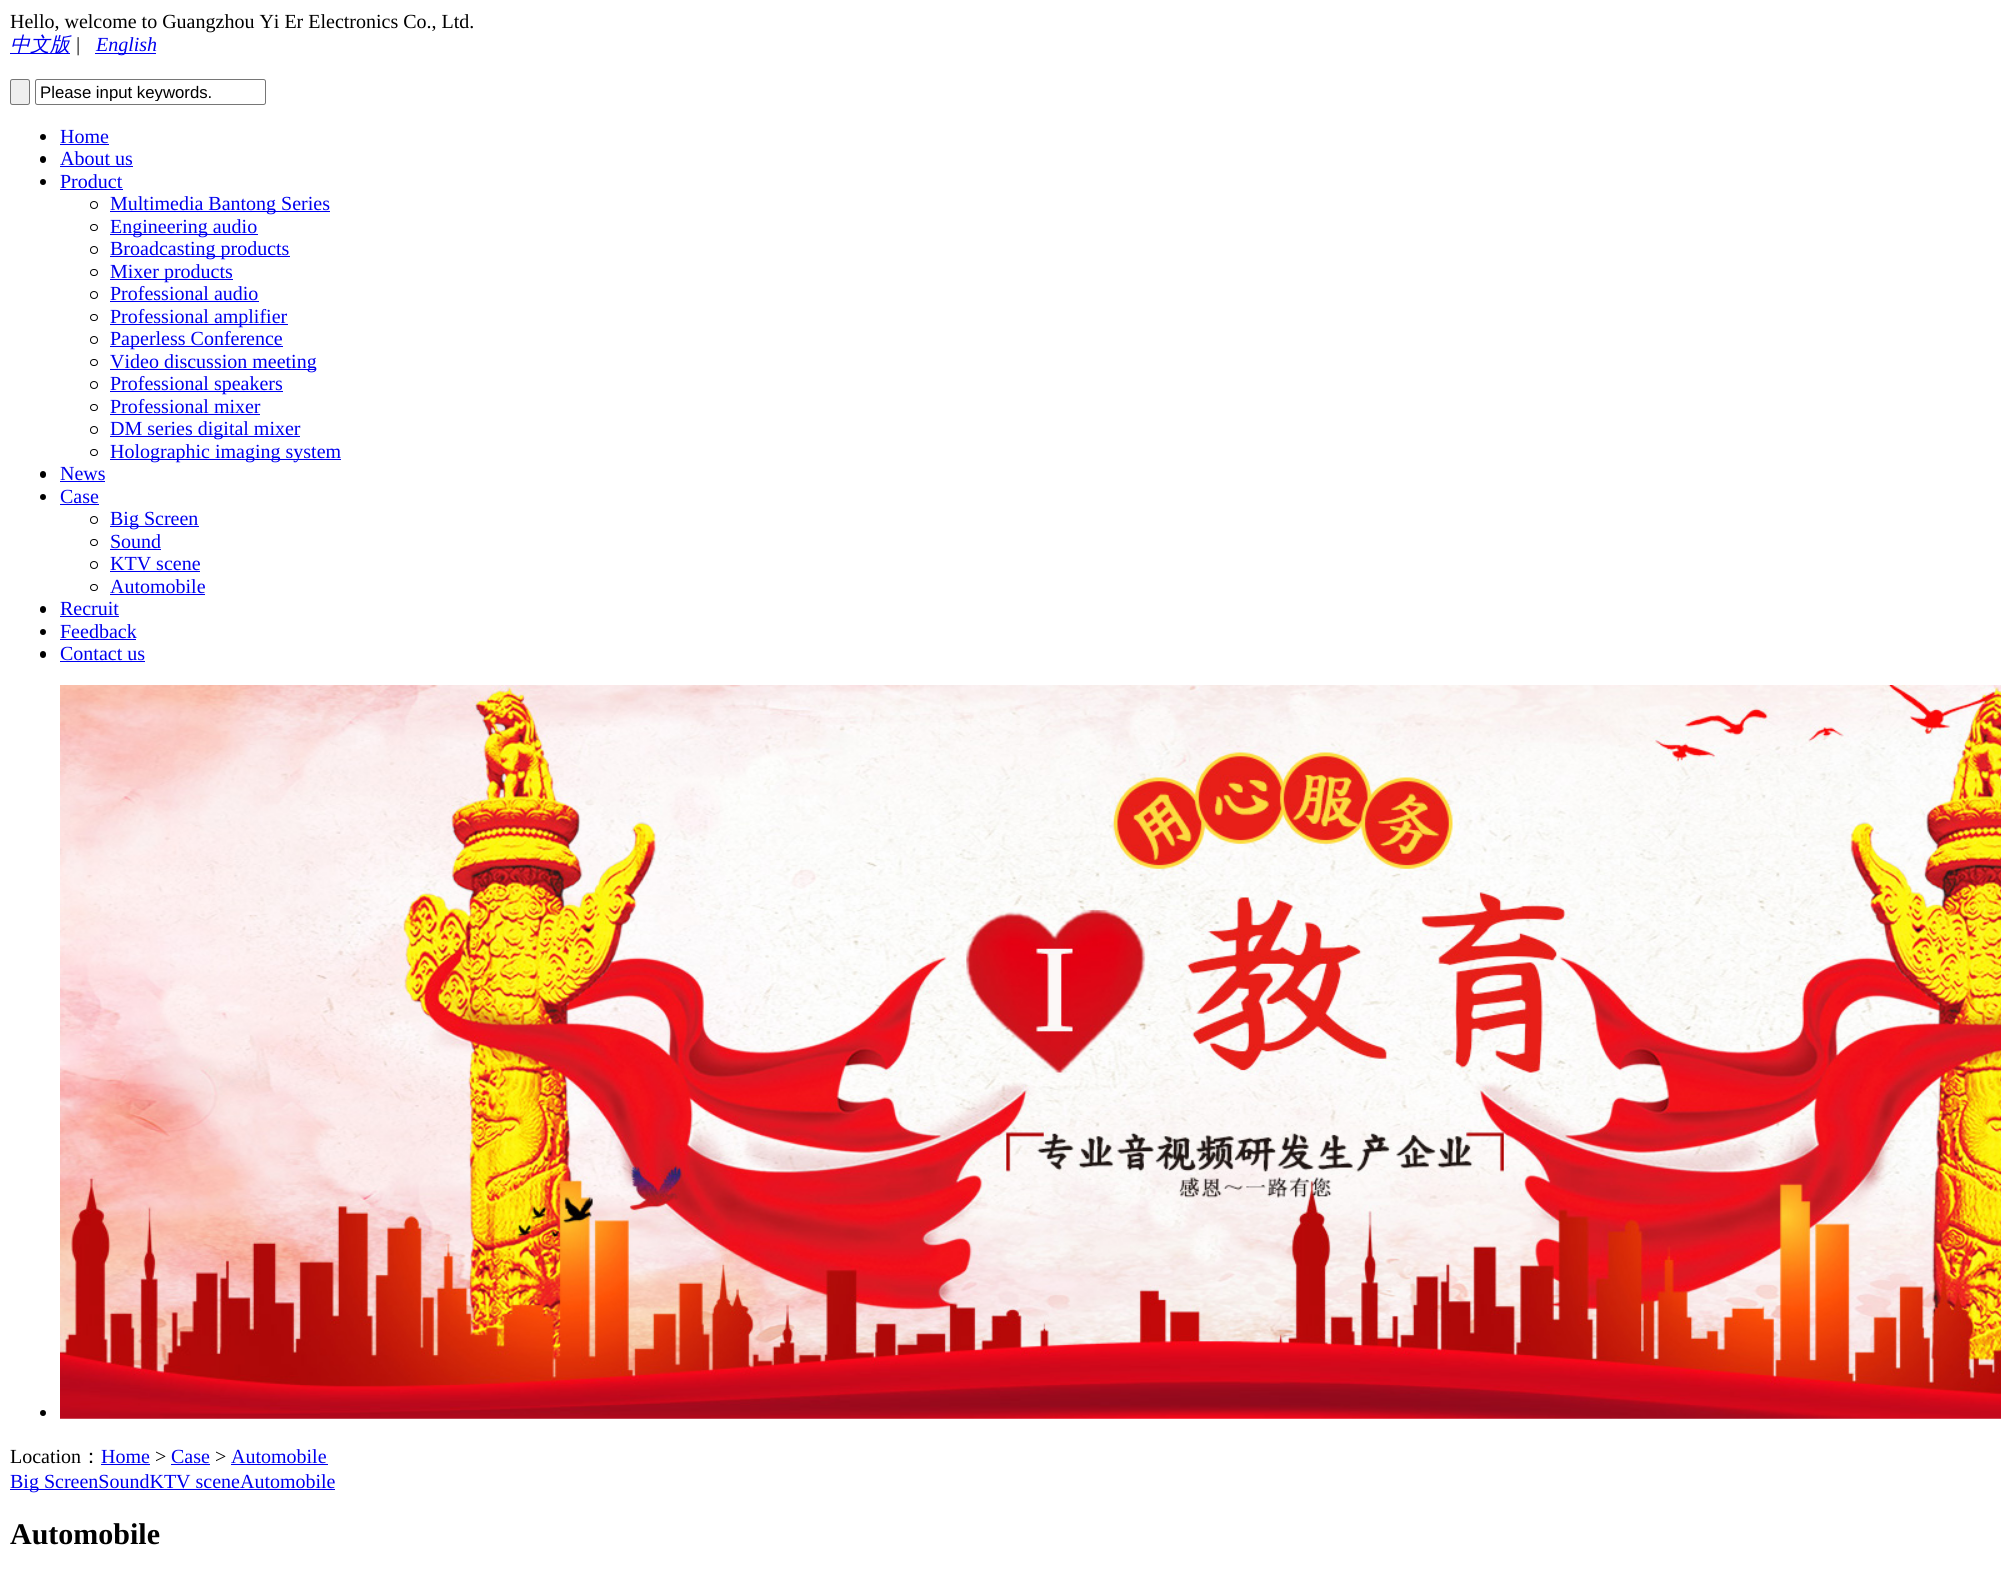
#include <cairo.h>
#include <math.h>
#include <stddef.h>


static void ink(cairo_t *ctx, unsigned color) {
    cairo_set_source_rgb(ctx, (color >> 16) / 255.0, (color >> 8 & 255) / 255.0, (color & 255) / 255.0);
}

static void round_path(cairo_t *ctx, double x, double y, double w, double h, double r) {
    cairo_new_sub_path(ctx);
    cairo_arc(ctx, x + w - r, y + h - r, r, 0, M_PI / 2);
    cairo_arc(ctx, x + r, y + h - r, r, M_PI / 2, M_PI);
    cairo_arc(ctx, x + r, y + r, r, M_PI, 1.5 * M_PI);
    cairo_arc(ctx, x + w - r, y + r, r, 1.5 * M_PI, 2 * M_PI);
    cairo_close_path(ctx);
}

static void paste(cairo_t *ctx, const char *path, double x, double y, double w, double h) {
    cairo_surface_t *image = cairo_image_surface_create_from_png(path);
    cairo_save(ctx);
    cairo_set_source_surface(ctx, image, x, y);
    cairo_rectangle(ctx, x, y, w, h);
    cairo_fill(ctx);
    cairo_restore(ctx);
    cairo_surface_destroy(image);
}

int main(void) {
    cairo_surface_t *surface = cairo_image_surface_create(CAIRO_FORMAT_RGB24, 2001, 1570);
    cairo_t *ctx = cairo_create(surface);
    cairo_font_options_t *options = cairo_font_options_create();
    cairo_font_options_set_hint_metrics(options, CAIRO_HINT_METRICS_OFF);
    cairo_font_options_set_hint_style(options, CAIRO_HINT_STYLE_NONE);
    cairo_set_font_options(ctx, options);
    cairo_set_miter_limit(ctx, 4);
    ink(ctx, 0xFFFFFF);
    cairo_paint(ctx);
    cairo_select_font_face(ctx, "Liberation Serif", CAIRO_FONT_SLANT_NORMAL, CAIRO_FONT_WEIGHT_NORMAL);
    cairo_set_font_size(ctx, 20);
    ink(ctx, 0x000000);
    cairo_move_to(ctx, 10, 28);
    cairo_show_text(ctx, "Hello, welcome to Guangzhou Yi Er Electronics Co., Ltd.");
    ink(ctx, 0x0000EE);
    cairo_rectangle(ctx, 10, 53, 60, 1);
    cairo_fill(ctx);
    cairo_select_font_face(ctx, "WenQuanYi Zen Hei Medium", CAIRO_FONT_SLANT_ITALIC, CAIRO_FONT_WEIGHT_NORMAL);
    cairo_move_to(ctx, 10, 51);
    cairo_show_text(ctx, "中文版");
    cairo_select_font_face(ctx, "Liberation Serif", CAIRO_FONT_SLANT_ITALIC, CAIRO_FONT_WEIGHT_NORMAL);
    ink(ctx, 0x000000);
    cairo_move_to(ctx, 75, 51);
    cairo_show_text(ctx, "|");
    ink(ctx, 0x0000EE);
    cairo_rectangle(ctx, 95, 53, 61, 1);
    cairo_fill(ctx);
    cairo_move_to(ctx, 96, 51);
    cairo_show_text(ctx, "English");
    ink(ctx, 0xEFEFEF);
    round_path(ctx, 10.5, 79.5, 19, 25, 2);
    cairo_fill_preserve(ctx);
    ink(ctx, 0x767676);
    cairo_set_line_width(ctx, 1);
    cairo_stroke(ctx);
    round_path(ctx, 35.5, 79.5, 230, 25, 2);
    cairo_stroke(ctx);
    cairo_save(ctx);
    cairo_rectangle(ctx, 40, 83, 221, 18);
    cairo_clip(ctx);
    cairo_select_font_face(ctx, "Liberation Sans", CAIRO_FONT_SLANT_NORMAL, CAIRO_FONT_WEIGHT_NORMAL);
    cairo_set_font_size(ctx, 16.75);
    ink(ctx, 0x000000);
    cairo_move_to(ctx, 40, 98);
    cairo_show_text(ctx, "Please input keywords.");
    cairo_restore(ctx);
    ink(ctx, 0x000000);
    cairo_new_path(ctx);
    cairo_arc(ctx, 43, 137, 3, 0, 2 * M_PI);
    cairo_fill(ctx);
    cairo_select_font_face(ctx, "Liberation Serif", CAIRO_FONT_SLANT_NORMAL, CAIRO_FONT_WEIGHT_NORMAL);
    ink(ctx, 0x0000EE);
    cairo_move_to(ctx, 60, 143);
    cairo_show_text(ctx, "Home");
    cairo_rectangle(ctx, 60, 144, 49, 1);
    cairo_fill(ctx);
    ink(ctx, 0x000000);
    round_path(ctx, 40, 156, 6, 7, 3);
    cairo_fill(ctx);
    ink(ctx, 0x0000EE);
    cairo_move_to(ctx, 60, 165);
    cairo_show_text(ctx, "About us");
    cairo_rectangle(ctx, 60, 166, 73, 1);
    cairo_fill(ctx);
    ink(ctx, 0x000000);
    cairo_arc(ctx, 43, 182, 3, 0, 2 * M_PI);
    cairo_fill(ctx);
    ink(ctx, 0x0000EE);
    cairo_move_to(ctx, 60, 188);
    cairo_show_text(ctx, "Product");
    cairo_rectangle(ctx, 60, 189, 63, 1);
    cairo_fill(ctx);
    cairo_arc(ctx, 94, 205, 3.5, 0, 2 * M_PI);
    ink(ctx, 0x000000);
    cairo_stroke(ctx);
    ink(ctx, 0x0000EE);
    cairo_rectangle(ctx, 110, 211, 220, 1);
    cairo_fill(ctx);
    cairo_move_to(ctx, 110, 210);
    cairo_show_text(ctx, "Multimedia Bantong Series");
    round_path(ctx, 90.5, 224.5, 7, 6, 3);
    ink(ctx, 0x000000);
    cairo_stroke(ctx);
    ink(ctx, 0x0000EE);
    cairo_rectangle(ctx, 110, 234, 148, 1);
    cairo_fill(ctx);
    cairo_move_to(ctx, 110, 233);
    cairo_show_text(ctx, "Engineering audio");
    cairo_new_path(ctx);
    cairo_arc(ctx, 94, 250, 3.5, 0, 2 * M_PI);
    ink(ctx, 0x000000);
    cairo_stroke(ctx);
    ink(ctx, 0x0000EE);
    cairo_rectangle(ctx, 110, 256, 180, 1);
    cairo_fill(ctx);
    cairo_move_to(ctx, 110, 255);
    cairo_show_text(ctx, "Broadcasting products");
    round_path(ctx, 90.5, 269.5, 7, 6, 3);
    ink(ctx, 0x000000);
    cairo_stroke(ctx);
    ink(ctx, 0x0000EE);
    cairo_rectangle(ctx, 110, 279, 123, 1);
    cairo_fill(ctx);
    cairo_move_to(ctx, 110, 278);
    cairo_show_text(ctx, "Mixer products");
    cairo_new_path(ctx);
    cairo_arc(ctx, 94, 295, 3.5, 0, 2 * M_PI);
    ink(ctx, 0x000000);
    cairo_stroke(ctx);
    ink(ctx, 0x0000EE);
    cairo_move_to(ctx, 110, 300);
    cairo_show_text(ctx, "Professional audio");
    cairo_rectangle(ctx, 110, 301, 149, 1);
    cairo_fill(ctx);
    round_path(ctx, 90.5, 314.5, 7, 6, 3);
    ink(ctx, 0x000000);
    cairo_stroke(ctx);
    ink(ctx, 0x0000EE);
    cairo_rectangle(ctx, 110, 324, 178, 1);
    cairo_fill(ctx);
    cairo_move_to(ctx, 110, 323);
    cairo_show_text(ctx, "Professional amplifier");
    cairo_new_path(ctx);
    cairo_arc(ctx, 94, 340, 3.5, 0, 2 * M_PI);
    ink(ctx, 0x000000);
    cairo_stroke(ctx);
    ink(ctx, 0x0000EE);
    cairo_rectangle(ctx, 110, 346, 173, 1);
    cairo_fill(ctx);
    cairo_move_to(ctx, 110, 345);
    cairo_show_text(ctx, "Paperless Conference");
    round_path(ctx, 90.5, 359.5, 7, 6, 3);
    ink(ctx, 0x000000);
    cairo_stroke(ctx);
    ink(ctx, 0x0000EE);
    cairo_rectangle(ctx, 110, 369, 206, 1);
    cairo_fill(ctx);
    cairo_move_to(ctx, 110, 368);
    cairo_show_text(ctx, "Video discussion meeting");
    cairo_new_path(ctx);
    cairo_arc(ctx, 94, 385, 3.5, 0, 2 * M_PI);
    ink(ctx, 0x000000);
    cairo_stroke(ctx);
    ink(ctx, 0x0000EE);
    cairo_rectangle(ctx, 110, 391, 173, 1);
    cairo_fill(ctx);
    cairo_move_to(ctx, 110, 390);
    cairo_show_text(ctx, "Professional speakers");
    round_path(ctx, 90.5, 404.5, 7, 6, 3);
    ink(ctx, 0x000000);
    cairo_stroke(ctx);
    ink(ctx, 0x0000EE);
    cairo_move_to(ctx, 110, 413);
    cairo_show_text(ctx, "Professional mixer");
    cairo_rectangle(ctx, 110, 414, 150, 1);
    cairo_fill(ctx);
    cairo_arc(ctx, 94, 430, 3.5, 0, 2 * M_PI);
    ink(ctx, 0x000000);
    cairo_stroke(ctx);
    ink(ctx, 0x0000EE);
    cairo_rectangle(ctx, 110, 436, 190, 1);
    cairo_fill(ctx);
    cairo_move_to(ctx, 110, 435);
    cairo_show_text(ctx, "DM series digital mixer");
    round_path(ctx, 90.5, 449.5, 7, 6, 3);
    ink(ctx, 0x000000);
    cairo_stroke(ctx);
    ink(ctx, 0x0000EE);
    cairo_rectangle(ctx, 110, 459, 231, 1);
    cairo_fill(ctx);
    cairo_move_to(ctx, 110, 458);
    cairo_show_text(ctx, "Holographic imaging system");
    ink(ctx, 0x000000);
    round_path(ctx, 40, 471, 6, 7, 3);
    cairo_fill(ctx);
    ink(ctx, 0x0000EE);
    cairo_move_to(ctx, 60, 480);
    cairo_show_text(ctx, "News");
    cairo_rectangle(ctx, 60, 481, 45, 1);
    cairo_fill(ctx);
    ink(ctx, 0x000000);
    cairo_arc(ctx, 43, 497, 3, 0, 2 * M_PI);
    cairo_fill(ctx);
    ink(ctx, 0x0000EE);
    cairo_move_to(ctx, 60, 503);
    cairo_show_text(ctx, "Case");
    cairo_rectangle(ctx, 60, 504, 39, 1);
    cairo_fill(ctx);
    cairo_arc(ctx, 94, 520, 3.5, 0, 2 * M_PI);
    ink(ctx, 0x000000);
    cairo_stroke(ctx);
    ink(ctx, 0x0000EE);
    cairo_rectangle(ctx, 110, 526, 89, 1);
    cairo_fill(ctx);
    cairo_move_to(ctx, 110, 525);
    cairo_show_text(ctx, "Big Screen");
    round_path(ctx, 90.5, 539.5, 7, 6, 3);
    ink(ctx, 0x000000);
    cairo_stroke(ctx);
    ink(ctx, 0x0000EE);
    cairo_move_to(ctx, 110, 548);
    cairo_show_text(ctx, "Sound");
    cairo_rectangle(ctx, 110, 549, 51, 1);
    cairo_fill(ctx);
    cairo_arc(ctx, 94, 565, 3.5, 0, 2 * M_PI);
    ink(ctx, 0x000000);
    cairo_stroke(ctx);
    ink(ctx, 0x0000EE);
    cairo_move_to(ctx, 110, 570);
    cairo_show_text(ctx, "KTV scene");
    cairo_rectangle(ctx, 110, 571, 90, 1);
    cairo_fill(ctx);
    round_path(ctx, 90.5, 584.5, 7, 6, 3);
    ink(ctx, 0x000000);
    cairo_stroke(ctx);
    ink(ctx, 0x0000EE);
    cairo_move_to(ctx, 110, 593);
    cairo_show_text(ctx, "Automobile");
    cairo_rectangle(ctx, 110, 594, 95, 1);
    cairo_fill(ctx);
    ink(ctx, 0x000000);
    round_path(ctx, 40, 606, 6, 7, 3);
    cairo_fill(ctx);
    ink(ctx, 0x0000EE);
    cairo_move_to(ctx, 60, 615);
    cairo_show_text(ctx, "Recruit");
    cairo_rectangle(ctx, 60, 616, 59, 1);
    cairo_fill(ctx);
    ink(ctx, 0x000000);
    cairo_arc(ctx, 43, 632, 3, 0, 2 * M_PI);
    cairo_fill(ctx);
    ink(ctx, 0x0000EE);
    cairo_move_to(ctx, 60, 638);
    cairo_show_text(ctx, "Feedback");
    cairo_rectangle(ctx, 60, 639, 76, 1);
    cairo_fill(ctx);
    ink(ctx, 0x000000);
    round_path(ctx, 40, 651, 6, 7, 3);
    cairo_fill(ctx);
    ink(ctx, 0x0000EE);
    cairo_move_to(ctx, 60, 660);
    cairo_show_text(ctx, "Contact us");
    cairo_rectangle(ctx, 60, 661, 85, 1);
    cairo_fill(ctx);
    ink(ctx, 0x000000);
    cairo_arc(ctx, 43, 1413, 3, 0, 2 * M_PI);
    cairo_fill(ctx);
    paste(ctx, "media/1.png", 60, 685, 1941, 734);
    cairo_move_to(ctx, 10, 1463);
    cairo_show_text(ctx, "Location");
    cairo_select_font_face(ctx, "WenQuanYi Zen Hei Medium", CAIRO_FONT_SLANT_NORMAL, CAIRO_FONT_WEIGHT_NORMAL);
    cairo_move_to(ctx, 81, 1463);
    cairo_show_text(ctx, "：");
    cairo_select_font_face(ctx, "Liberation Serif", CAIRO_FONT_SLANT_NORMAL, CAIRO_FONT_WEIGHT_NORMAL);
    ink(ctx, 0x0000EE);
    cairo_move_to(ctx, 101, 1463);
    cairo_show_text(ctx, "Home");
    cairo_rectangle(ctx, 101, 1464, 49, 1);
    cairo_fill(ctx);
    ink(ctx, 0x000000);
    cairo_move_to(ctx, 155, 1463);
    cairo_show_text(ctx, ">");
    ink(ctx, 0x0000EE);
    cairo_move_to(ctx, 171, 1463);
    cairo_show_text(ctx, "Case");
    cairo_rectangle(ctx, 171, 1464, 39, 1);
    cairo_fill(ctx);
    ink(ctx, 0x000000);
    cairo_move_to(ctx, 215, 1463);
    cairo_show_text(ctx, ">");
    ink(ctx, 0x0000EE);
    cairo_move_to(ctx, 231, 1463);
    cairo_show_text(ctx, "Automobile");
    cairo_rectangle(ctx, 231, 1464, 97, 1);
    cairo_fill(ctx);
    cairo_rectangle(ctx, 10, 1489, 325, 1);
    cairo_fill(ctx);
    cairo_move_to(ctx, 10, 1488);
    cairo_show_text(ctx, "Big ScreenSoundKTV sceneAutomobile");
    cairo_select_font_face(ctx, "Liberation Serif", CAIRO_FONT_SLANT_NORMAL, CAIRO_FONT_WEIGHT_BOLD);
    cairo_set_font_size(ctx, 30);
    ink(ctx, 0x000000);
    cairo_move_to(ctx, 10, 1544);
    cairo_show_text(ctx, "Automobile");
    cairo_surface_write_to_png(surface, "image.png");
    cairo_font_options_destroy(options);
    cairo_destroy(ctx);
    cairo_surface_destroy(surface);
    return 0;
}
